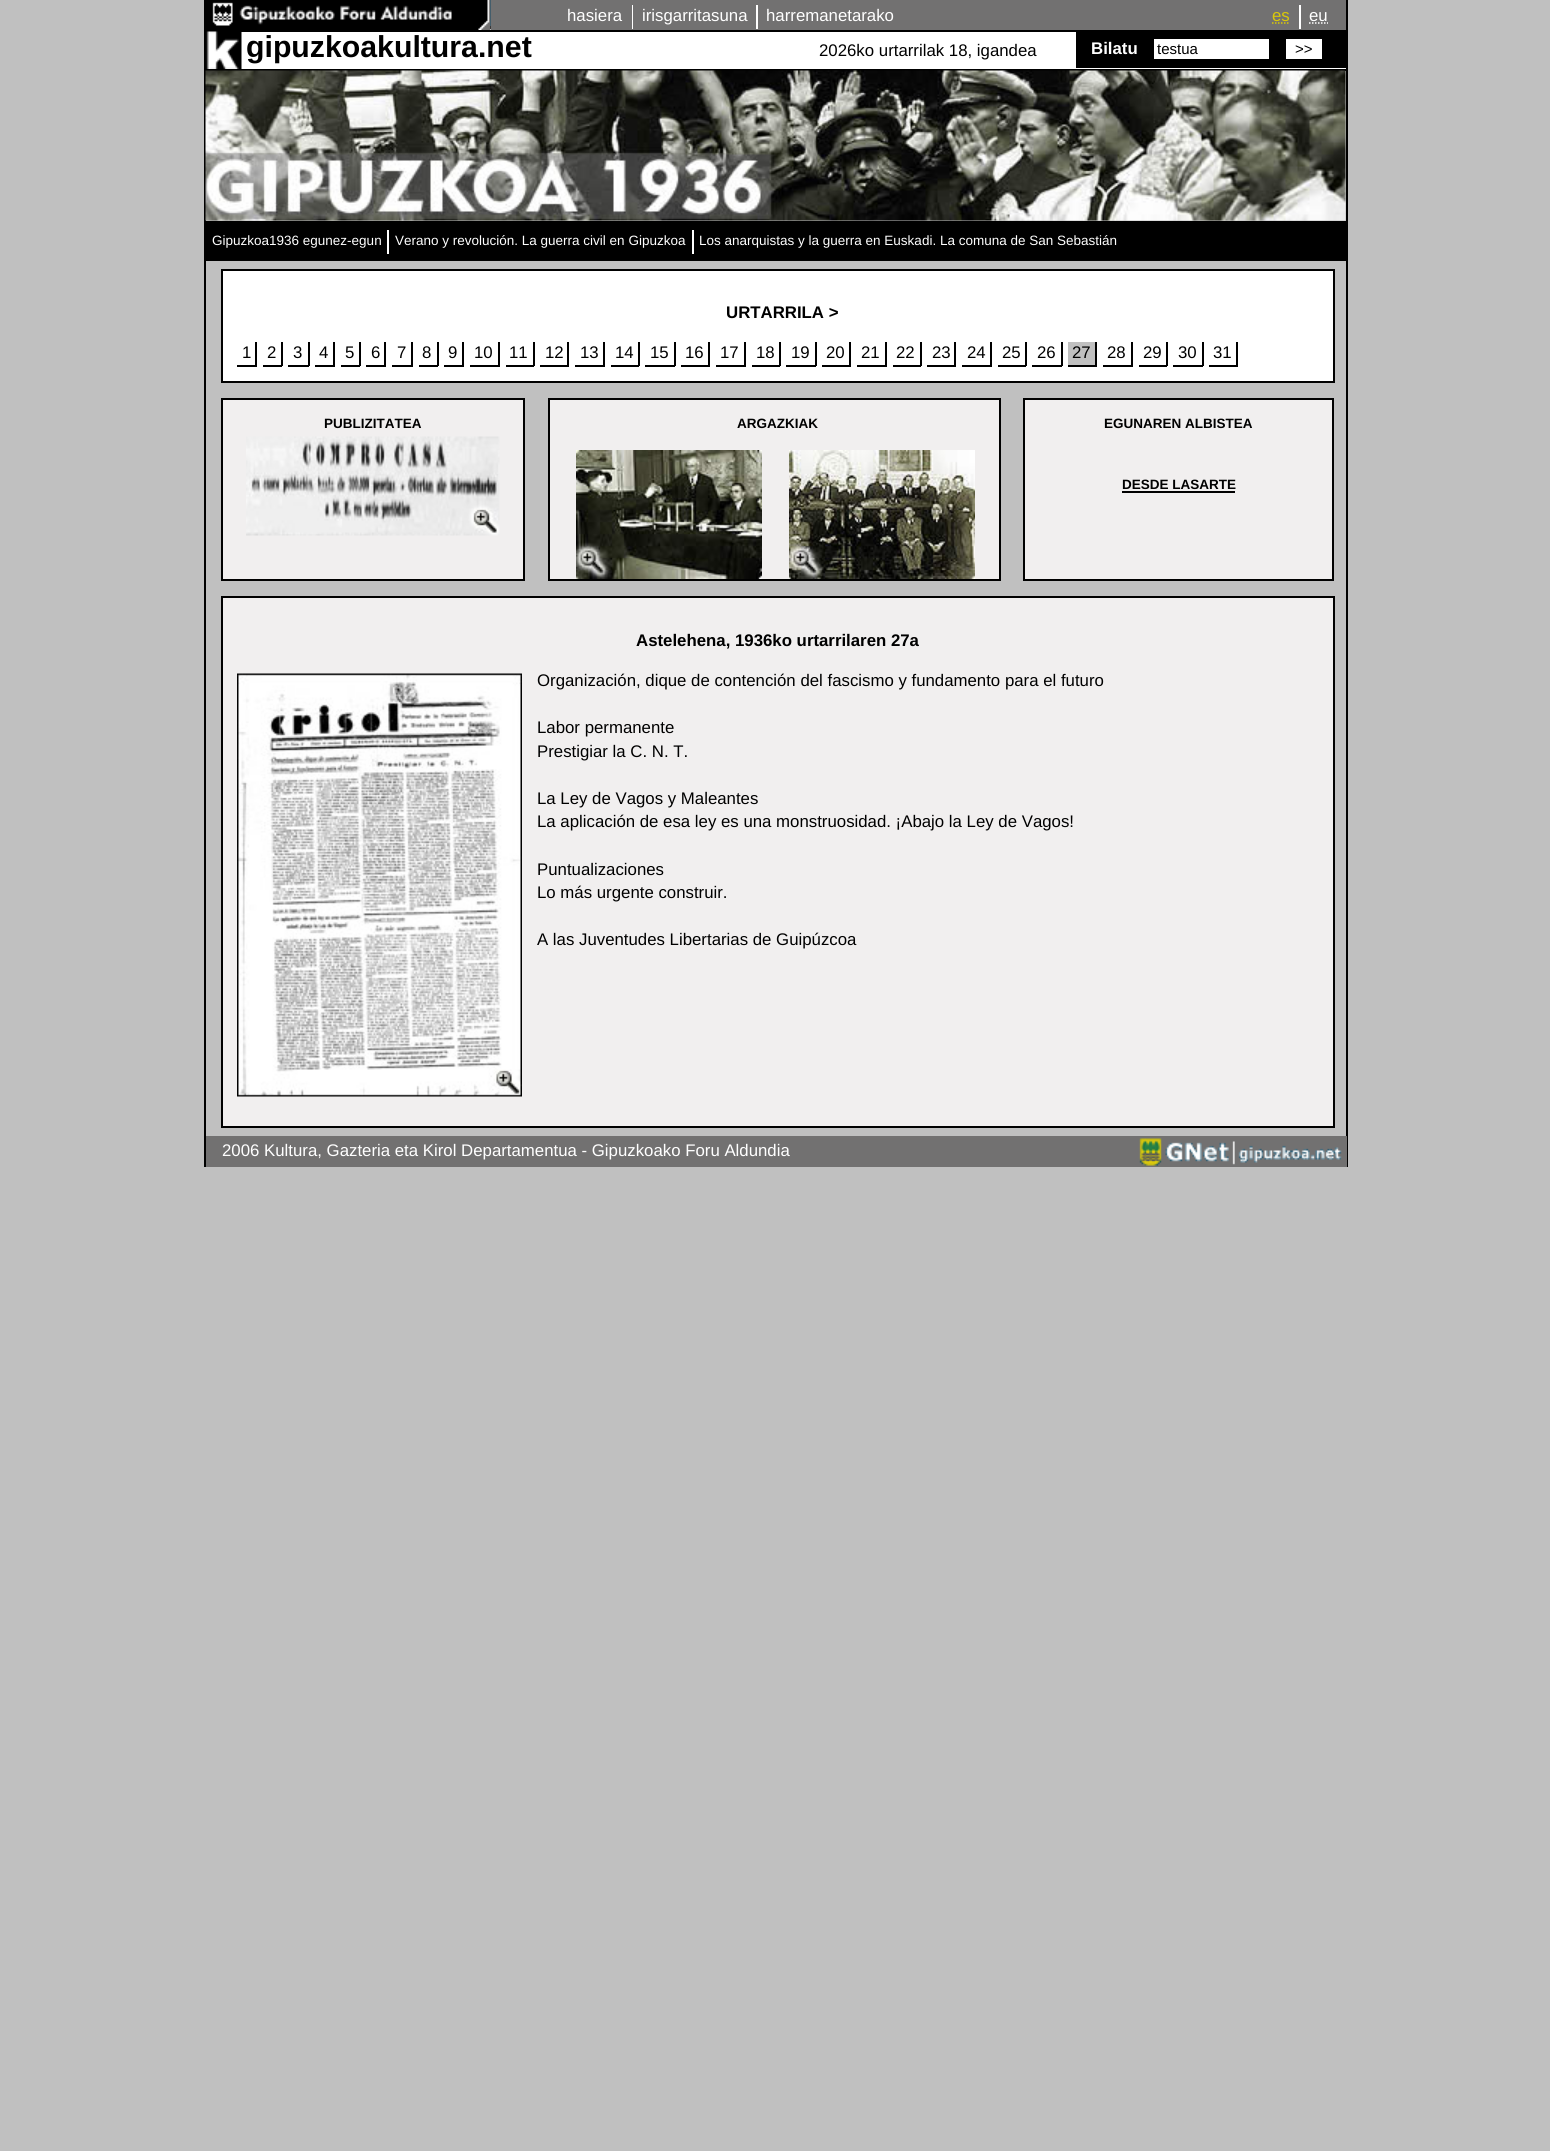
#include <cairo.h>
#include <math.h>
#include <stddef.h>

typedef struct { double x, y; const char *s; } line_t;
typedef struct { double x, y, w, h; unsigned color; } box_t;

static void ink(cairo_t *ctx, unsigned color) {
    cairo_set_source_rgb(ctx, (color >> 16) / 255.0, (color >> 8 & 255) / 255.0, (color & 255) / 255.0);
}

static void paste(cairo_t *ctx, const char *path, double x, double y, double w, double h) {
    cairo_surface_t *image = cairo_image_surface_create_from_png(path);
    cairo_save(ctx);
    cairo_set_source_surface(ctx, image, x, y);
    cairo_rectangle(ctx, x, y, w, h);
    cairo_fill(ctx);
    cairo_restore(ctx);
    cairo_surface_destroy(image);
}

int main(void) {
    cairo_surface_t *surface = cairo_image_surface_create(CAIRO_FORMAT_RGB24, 1550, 2151);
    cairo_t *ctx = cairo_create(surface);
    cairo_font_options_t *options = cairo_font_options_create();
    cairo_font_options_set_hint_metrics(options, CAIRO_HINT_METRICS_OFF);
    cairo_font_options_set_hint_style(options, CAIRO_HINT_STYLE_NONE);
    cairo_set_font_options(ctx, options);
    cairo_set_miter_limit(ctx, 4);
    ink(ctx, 0xC0C0C0);
    cairo_paint(ctx);
    {
        static const box_t items[] = {
            {1346, 0, 2, 1167, 0x000000},
            {204, 0, 2, 1167, 0x000000},
            {490, 0, 1, 26, 0x144B66},
            {490, 26, 1, 3, 0x000000},
            {241, 29, 1105, 40, 0xFFFFFF},
            {206, 30, 1140, 2, 0x000000},
        };
        for (size_t i = 0; i < sizeof items / sizeof *items; i++) {
            ink(ctx, items[i].color);
            cairo_rectangle(ctx, items[i].x, items[i].y, items[i].w, items[i].h);
            cairo_fill(ctx);
        }
    }
    paste(ctx, "media/1.png", 206, 0, 285, 30);
    ink(ctx, 0x727171);
    cairo_rectangle(ctx, 491, 0, 855, 30);
    cairo_fill(ctx);
    ink(ctx, 0xFFFFFF);
    cairo_rectangle(ctx, 632, 5, 1, 24);
    cairo_fill(ctx);
    cairo_select_font_face(ctx, "Liberation Sans", CAIRO_FONT_SLANT_NORMAL, CAIRO_FONT_WEIGHT_NORMAL);
    cairo_set_font_size(ctx, 16.8);
    cairo_move_to(ctx, 567, 21);
    cairo_show_text(ctx, "hasiera");
    cairo_rectangle(ctx, 756, 5, 2, 24);
    cairo_fill(ctx);
    cairo_move_to(ctx, 642, 21);
    cairo_show_text(ctx, "irisgarritasuna");
    cairo_move_to(ctx, 766, 21);
    cairo_show_text(ctx, "harremanetarako");
    cairo_rectangle(ctx, 1299, 5, 2, 24);
    cairo_fill(ctx);
    ink(ctx, 0xD9C809);
    cairo_move_to(ctx, 1272, 21);
    cairo_show_text(ctx, "es");
    cairo_new_path(ctx);
    cairo_move_to(ctx, 1272, 23);
    cairo_line_to(ctx, 1289.5, 23);
    cairo_set_line_width(ctx, 1.5);
    cairo_set_dash(ctx, (double[]){1.5, 1.5}, 2, 0);
    cairo_stroke(ctx);
    ink(ctx, 0xFFFFFF);
    cairo_move_to(ctx, 1309, 21);
    cairo_show_text(ctx, "eu");
    cairo_new_path(ctx);
    cairo_move_to(ctx, 1309, 23);
    cairo_line_to(ctx, 1328, 23);
    cairo_stroke(ctx);
    ink(ctx, 0x000000);
    cairo_rectangle(ctx, 206, 69, 1140, 2);
    cairo_fill(ctx);
    paste(ctx, "media/2.png", 206, 31, 36, 38);
    cairo_select_font_face(ctx, "Liberation Sans", CAIRO_FONT_SLANT_NORMAL, CAIRO_FONT_WEIGHT_BOLD);
    cairo_set_font_size(ctx, 30.25);
    cairo_move_to(ctx, 246, 57);
    cairo_show_text(ctx, "gipuzkoakultura.net");
    cairo_select_font_face(ctx, "Liberation Sans", CAIRO_FONT_SLANT_NORMAL, CAIRO_FONT_WEIGHT_NORMAL);
    cairo_set_font_size(ctx, 16.8);
    cairo_move_to(ctx, 819, 56);
    cairo_show_text(ctx, "2026ko urtarrilak 18, igandea");
    cairo_rectangle(ctx, 1076, 32, 270, 36);
    cairo_fill(ctx);
    cairo_select_font_face(ctx, "Liberation Sans", CAIRO_FONT_SLANT_NORMAL, CAIRO_FONT_WEIGHT_BOLD);
    ink(ctx, 0xFFFFFF);
    cairo_move_to(ctx, 1091, 54);
    cairo_show_text(ctx, "Bilatu");
    cairo_rectangle(ctx, 1154, 39, 115, 20);
    cairo_fill(ctx);
    cairo_select_font_face(ctx, "Liberation Sans", CAIRO_FONT_SLANT_NORMAL, CAIRO_FONT_WEIGHT_NORMAL);
    cairo_set_font_size(ctx, 15);
    ink(ctx, 0x000000);
    cairo_move_to(ctx, 1157, 54);
    cairo_show_text(ctx, "testua");
    ink(ctx, 0xFFFFFF);
    cairo_rectangle(ctx, 1286, 39, 36, 20);
    cairo_fill(ctx);
    ink(ctx, 0x000000);
    cairo_move_to(ctx, 1295, 54);
    cairo_show_text(ctx, ">>");
    paste(ctx, "media/3.png", 205, 70, 1141, 151);
    cairo_rectangle(ctx, 206, 221, 1140, 40);
    cairo_fill(ctx);
    ink(ctx, 0xFFFFFF);
    cairo_rectangle(ctx, 387, 230, 2, 24);
    cairo_fill(ctx);
    cairo_set_font_size(ctx, 13.5);
    cairo_move_to(ctx, 212, 245);
    cairo_show_text(ctx, "Gipuzkoa1936 egunez-egun");
    cairo_rectangle(ctx, 692, 230, 2, 24);
    cairo_fill(ctx);
    cairo_move_to(ctx, 395, 245);
    cairo_show_text(ctx, "Verano y revolución. La guerra civil en Gipuzkoa");
    cairo_move_to(ctx, 699, 245);
    cairo_show_text(ctx, "Los anarquistas y la guerra en Euskadi. La comuna de San Sebastián");
    cairo_rectangle(ctx, 222, 270, 1112, 112);
    cairo_fill_preserve(ctx);
    ink(ctx, 0x000000);
    cairo_set_line_width(ctx, 2);
    cairo_set_dash(ctx, NULL, 0, 0);
    cairo_stroke(ctx);
    cairo_select_font_face(ctx, "Liberation Sans", CAIRO_FONT_SLANT_NORMAL, CAIRO_FONT_WEIGHT_BOLD);
    cairo_set_font_size(ctx, 16.8);
    cairo_move_to(ctx, 726, 318);
    cairo_show_text(ctx, "URTARRILA >");
    cairo_rectangle(ctx, 255, 342, 2, 24);
    cairo_fill(ctx);
    cairo_rectangle(ctx, 237, 365, 20, 2);
    cairo_fill(ctx);
    cairo_select_font_face(ctx, "Liberation Sans", CAIRO_FONT_SLANT_NORMAL, CAIRO_FONT_WEIGHT_NORMAL);
    cairo_move_to(ctx, 242, 358);
    cairo_show_text(ctx, "1");
    cairo_rectangle(ctx, 281, 342, 2, 24);
    cairo_fill(ctx);
    cairo_rectangle(ctx, 263, 365, 19, 2);
    cairo_fill(ctx);
    cairo_move_to(ctx, 267, 358);
    cairo_show_text(ctx, "2");
    cairo_rectangle(ctx, 308, 342, 2, 24);
    cairo_fill(ctx);
    cairo_rectangle(ctx, 288, 365, 21, 2);
    cairo_fill(ctx);
    cairo_move_to(ctx, 293, 358);
    cairo_show_text(ctx, "3");
    cairo_rectangle(ctx, 333, 342, 2, 24);
    cairo_fill(ctx);
    cairo_rectangle(ctx, 315, 365, 20, 2);
    cairo_fill(ctx);
    cairo_move_to(ctx, 319, 358);
    cairo_show_text(ctx, "4");
    cairo_rectangle(ctx, 359, 342, 2, 24);
    cairo_fill(ctx);
    cairo_rectangle(ctx, 341, 365, 19, 2);
    cairo_fill(ctx);
    cairo_move_to(ctx, 345, 358);
    cairo_show_text(ctx, "5");
    cairo_rectangle(ctx, 384, 342, 2, 24);
    cairo_fill(ctx);
    cairo_rectangle(ctx, 366, 365, 20, 2);
    cairo_fill(ctx);
    cairo_move_to(ctx, 371, 358);
    cairo_show_text(ctx, "6");
    cairo_rectangle(ctx, 411, 342, 2, 24);
    cairo_fill(ctx);
    cairo_rectangle(ctx, 392, 365, 21, 2);
    cairo_fill(ctx);
    cairo_move_to(ctx, 397, 358);
    cairo_show_text(ctx, "7");
    cairo_rectangle(ctx, 437, 342, 2, 24);
    cairo_fill(ctx);
    cairo_rectangle(ctx, 419, 365, 19, 2);
    cairo_fill(ctx);
    cairo_move_to(ctx, 422, 358);
    cairo_show_text(ctx, "8");
    cairo_rectangle(ctx, 462, 342, 2, 24);
    cairo_fill(ctx);
    cairo_rectangle(ctx, 444, 365, 20, 2);
    cairo_fill(ctx);
    cairo_move_to(ctx, 448, 358);
    cairo_show_text(ctx, "9");
    cairo_rectangle(ctx, 498, 342, 2, 24);
    cairo_fill(ctx);
    cairo_rectangle(ctx, 470, 365, 30, 2);
    cairo_fill(ctx);
    cairo_move_to(ctx, 474, 358);
    cairo_show_text(ctx, "10");
    cairo_rectangle(ctx, 533, 342, 2, 24);
    cairo_fill(ctx);
    cairo_rectangle(ctx, 506, 365, 28, 2);
    cairo_fill(ctx);
    cairo_move_to(ctx, 509, 358);
    cairo_show_text(ctx, "11");
    cairo_rectangle(ctx, 567, 342, 2, 24);
    cairo_fill(ctx);
    cairo_rectangle(ctx, 540, 365, 29, 2);
    cairo_fill(ctx);
    cairo_move_to(ctx, 545, 358);
    cairo_show_text(ctx, "12");
    cairo_rectangle(ctx, 603, 342, 2, 24);
    cairo_fill(ctx);
    cairo_rectangle(ctx, 575, 365, 30, 2);
    cairo_fill(ctx);
    cairo_move_to(ctx, 580, 358);
    cairo_show_text(ctx, "13");
    cairo_rectangle(ctx, 638, 342, 2, 24);
    cairo_fill(ctx);
    cairo_rectangle(ctx, 611, 365, 28, 2);
    cairo_fill(ctx);
    cairo_move_to(ctx, 615, 358);
    cairo_show_text(ctx, "14");
    cairo_rectangle(ctx, 674, 342, 2, 24);
    cairo_fill(ctx);
    cairo_rectangle(ctx, 645, 365, 30, 2);
    cairo_fill(ctx);
    cairo_move_to(ctx, 650, 358);
    cairo_show_text(ctx, "15");
    cairo_rectangle(ctx, 708, 342, 2, 24);
    cairo_fill(ctx);
    cairo_rectangle(ctx, 681, 365, 29, 2);
    cairo_fill(ctx);
    cairo_move_to(ctx, 685, 358);
    cairo_show_text(ctx, "16");
    cairo_rectangle(ctx, 744, 342, 2, 24);
    cairo_fill(ctx);
    cairo_rectangle(ctx, 716, 365, 30, 2);
    cairo_fill(ctx);
    cairo_move_to(ctx, 720, 358);
    cairo_show_text(ctx, "17");
    cairo_rectangle(ctx, 779, 342, 2, 24);
    cairo_fill(ctx);
    cairo_rectangle(ctx, 752, 365, 28, 2);
    cairo_fill(ctx);
    cairo_move_to(ctx, 756, 358);
    cairo_show_text(ctx, "18");
    cairo_rectangle(ctx, 815, 342, 2, 24);
    cairo_fill(ctx);
    cairo_rectangle(ctx, 786, 365, 30, 2);
    cairo_fill(ctx);
    cairo_move_to(ctx, 791, 358);
    cairo_show_text(ctx, "19");
    cairo_rectangle(ctx, 849, 342, 2, 24);
    cairo_fill(ctx);
    cairo_rectangle(ctx, 822, 365, 29, 2);
    cairo_fill(ctx);
    cairo_move_to(ctx, 826, 358);
    cairo_show_text(ctx, "20");
    cairo_rectangle(ctx, 885, 342, 2, 24);
    cairo_fill(ctx);
    cairo_rectangle(ctx, 857, 365, 30, 2);
    cairo_fill(ctx);
    cairo_move_to(ctx, 861, 358);
    cairo_show_text(ctx, "21");
    cairo_rectangle(ctx, 920, 342, 2, 24);
    cairo_fill(ctx);
    cairo_rectangle(ctx, 893, 365, 28, 2);
    cairo_fill(ctx);
    cairo_move_to(ctx, 896, 358);
    cairo_show_text(ctx, "22");
    cairo_rectangle(ctx, 954, 342, 2, 24);
    cairo_fill(ctx);
    cairo_rectangle(ctx, 927, 365, 29, 2);
    cairo_fill(ctx);
    cairo_move_to(ctx, 932, 358);
    cairo_show_text(ctx, "23");
    cairo_rectangle(ctx, 990, 342, 2, 24);
    cairo_fill(ctx);
    cairo_rectangle(ctx, 962, 365, 30, 2);
    cairo_fill(ctx);
    cairo_move_to(ctx, 967, 358);
    cairo_show_text(ctx, "24");
    cairo_rectangle(ctx, 1025, 342, 2, 24);
    cairo_fill(ctx);
    cairo_rectangle(ctx, 998, 365, 28, 2);
    cairo_fill(ctx);
    cairo_move_to(ctx, 1002, 358);
    cairo_show_text(ctx, "25");
    cairo_rectangle(ctx, 1061, 342, 2, 24);
    cairo_fill(ctx);
    cairo_rectangle(ctx, 1032, 365, 30, 2);
    cairo_fill(ctx);
    cairo_move_to(ctx, 1037, 358);
    cairo_show_text(ctx, "26");
    {
        static const box_t items[] = {
            {1068, 342, 27, 23, 0xC0C0C0},
            {1095, 342, 2, 24, 0x000000},
            {1068, 365, 29, 2, 0x000000},
        };
        for (size_t i = 0; i < sizeof items / sizeof *items; i++) {
            ink(ctx, items[i].color);
            cairo_rectangle(ctx, items[i].x, items[i].y, items[i].w, items[i].h);
            cairo_fill(ctx);
        }
    }
    cairo_move_to(ctx, 1072, 358);
    cairo_show_text(ctx, "27");
    cairo_rectangle(ctx, 1131, 342, 2, 24);
    cairo_fill(ctx);
    cairo_rectangle(ctx, 1103, 365, 30, 2);
    cairo_fill(ctx);
    cairo_move_to(ctx, 1107, 358);
    cairo_show_text(ctx, "28");
    cairo_rectangle(ctx, 1166, 342, 2, 24);
    cairo_fill(ctx);
    cairo_rectangle(ctx, 1139, 365, 28, 2);
    cairo_fill(ctx);
    cairo_move_to(ctx, 1143, 358);
    cairo_show_text(ctx, "29");
    cairo_rectangle(ctx, 1202, 342, 2, 24);
    cairo_fill(ctx);
    cairo_rectangle(ctx, 1173, 365, 30, 2);
    cairo_fill(ctx);
    cairo_move_to(ctx, 1178, 358);
    cairo_show_text(ctx, "30");
    cairo_rectangle(ctx, 1236, 342, 2, 24);
    cairo_fill(ctx);
    cairo_rectangle(ctx, 1209, 365, 29, 2);
    cairo_fill(ctx);
    cairo_move_to(ctx, 1213, 358);
    cairo_show_text(ctx, "31");
    ink(ctx, 0xF1EFEF);
    cairo_rectangle(ctx, 222, 399, 302, 181);
    cairo_fill_preserve(ctx);
    ink(ctx, 0x000000);
    cairo_stroke(ctx);
    cairo_select_font_face(ctx, "Liberation Sans", CAIRO_FONT_SLANT_NORMAL, CAIRO_FONT_WEIGHT_BOLD);
    cairo_set_font_size(ctx, 13.5);
    cairo_move_to(ctx, 324, 428);
    cairo_show_text(ctx, "PUBLIZITATEA");
    paste(ctx, "media/4.png", 246, 436, 254, 100);
    ink(ctx, 0xF1EFEF);
    cairo_rectangle(ctx, 549, 399, 451, 181);
    cairo_fill_preserve(ctx);
    ink(ctx, 0x000000);
    cairo_stroke(ctx);
    cairo_move_to(ctx, 737, 428);
    cairo_show_text(ctx, "ARGAZKIAK");
    paste(ctx, "media/5.png", 576, 450, 186, 129);
    paste(ctx, "media/6.png", 789, 450, 186, 129);
    ink(ctx, 0xF1EFEF);
    cairo_rectangle(ctx, 1024, 399, 309, 181);
    cairo_fill_preserve(ctx);
    ink(ctx, 0x000000);
    cairo_stroke(ctx);
    cairo_move_to(ctx, 1104, 428);
    cairo_show_text(ctx, "EGUNAREN ALBISTEA");
    cairo_move_to(ctx, 1122, 489);
    cairo_show_text(ctx, "DESDE LASARTE");
    cairo_rectangle(ctx, 1122, 491, 113, 2);
    cairo_fill(ctx);
    ink(ctx, 0xF1EFEF);
    cairo_rectangle(ctx, 222, 597, 1112, 530);
    cairo_fill_preserve(ctx);
    ink(ctx, 0x000000);
    cairo_stroke(ctx);
    cairo_set_font_size(ctx, 16.8);
    cairo_move_to(ctx, 636, 646);
    cairo_show_text(ctx, "Astelehena, 1936ko urtarrilaren 27a");
    paste(ctx, "media/7.png", 237, 673, 285, 424);
    cairo_select_font_face(ctx, "Liberation Sans", CAIRO_FONT_SLANT_NORMAL, CAIRO_FONT_WEIGHT_NORMAL);
    {
        static const line_t items[] = {
            {537, 686, "Organización, dique de contención del fascismo y fundamento para el futuro"},
            {537, 733, "Labor permanente"},
            {537, 757, "Prestigiar la C. N. T."},
            {537, 804, "La Ley de Vagos y Maleantes"},
            {537, 827, "La aplicación de esa ley es una monstruosidad. ¡Abajo la Ley de Vagos!"},
            {537, 875, "Puntualizaciones"},
            {537, 898, "Lo más urgente construir."},
            {537, 945, "A las Juventudes Libertarias de Guipúzcoa"},
        };
        for (size_t i = 0; i < sizeof items / sizeof *items; i++) {
            cairo_move_to(ctx, items[i].x, items[i].y);
            cairo_show_text(ctx, items[i].s);
        }
    }
    ink(ctx, 0x727171);
    cairo_rectangle(ctx, 206, 1136, 1141, 31);
    cairo_fill(ctx);
    ink(ctx, 0xFFFFFF);
    cairo_move_to(ctx, 222, 1156);
    cairo_show_text(ctx, "2006 Kultura, Gazteria eta Kirol Departamentua - Gipuzkoako Foru Aldundia");
    paste(ctx, "media/8.png", 1139, 1138, 203, 28);
    cairo_surface_write_to_png(surface, "image.png");
    cairo_font_options_destroy(options);
    cairo_destroy(ctx);
    cairo_surface_destroy(surface);
    return 0;
}
